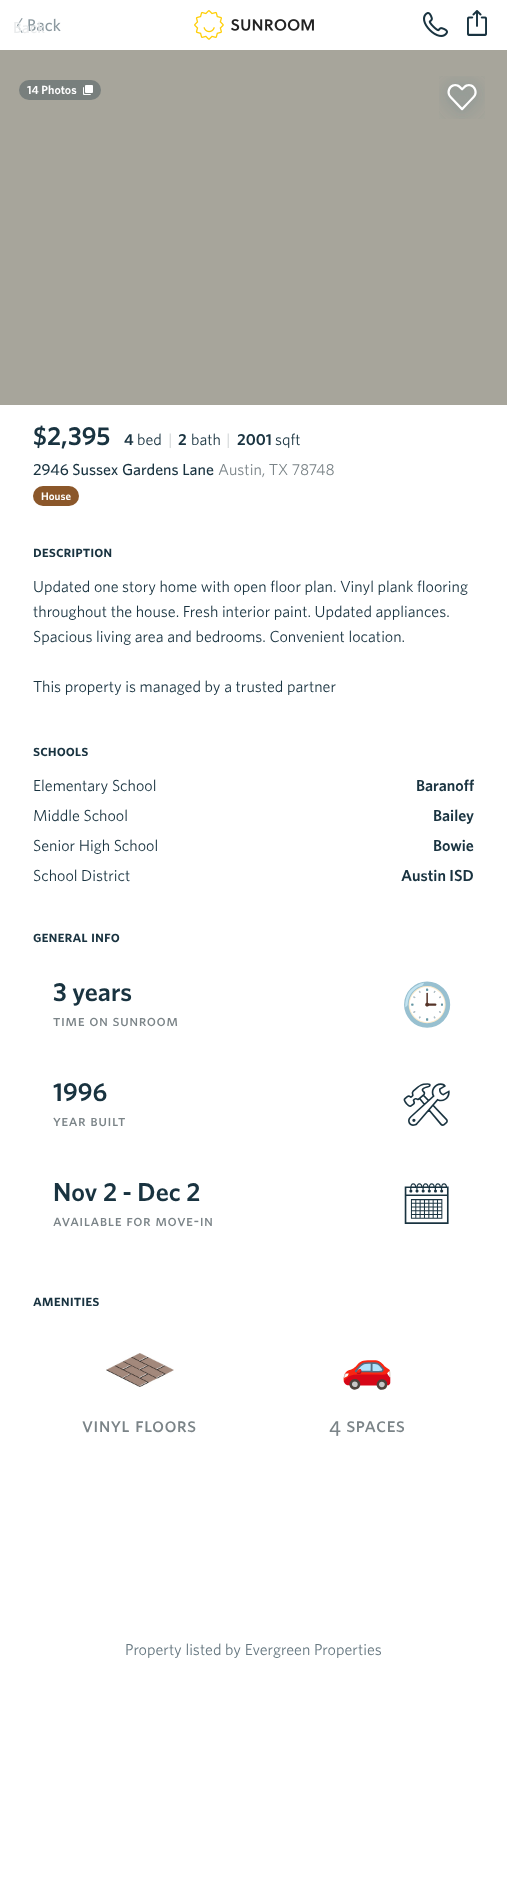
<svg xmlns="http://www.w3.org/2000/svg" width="507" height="1900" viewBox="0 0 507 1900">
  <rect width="100%" height="100%" fill="#fff"/>
  <image x="17" y="18" width="44" height="15" href="img/1.png"/>
  <image x="194" y="10" width="120" height="30" href="img/2.png"/>
  <image x="423" y="12" width="25" height="25" href="img/3.png"/>
  <image x="467" y="10" width="20" height="26" href="img/4.png"/>
  <path d="M0 50h507v355H0z" fill="#a7a59b"/>
  <rect x="19" y="80" width="82" height="20" rx="10" fill="#787f7d"/>
  <image x="83" y="85" width="10" height="10" href="img/5.png"/>
  <image x="439" y="76" width="46" height="43" href="img/6.png"/>
  <rect x="33" y="486" width="46" height="20" rx="10" fill="#8b572a"/>
  <image x="106" y="1353" width="68" height="34" href="img/7.png"/>
  <text x="13" y="33" font-family="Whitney" font-size="16" font-weight="500" fill="#e9ebec">Back</text>
  <text x="27" y="94" font-family="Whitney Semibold" font-size="12" font-weight="600" fill="#fff">14 Photos</text>
  <text x="33" y="445" font-family="Whitney Semibold" font-size="26" font-weight="600" fill="#193340">$2,395</text>
  <text x="124" y="445" font-family="Whitney Semibold" font-size="16" font-weight="600" fill="#193340">4</text>
  <text x="137" y="445" font-family="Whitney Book" font-size="16" fill="#193340">bed</text>
  <text x="168" y="445" font-family="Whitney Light" font-size="16" font-weight="300" fill="#bdc2c4">|</text>
  <text x="178" y="445" font-family="Whitney Semibold" font-size="16" font-weight="600" fill="#193340">2</text>
  <text x="191" y="445" font-family="Whitney Book" font-size="16" fill="#193340">bath</text>
  <text x="226" y="445" font-family="Whitney Light" font-size="16" font-weight="300" fill="#bdc2c4">|</text>
  <text x="237" y="445" font-family="Whitney Semibold" font-size="16" font-weight="600" fill="#193340">2001</text>
  <text x="275" y="445" font-family="Whitney Book" font-size="16" fill="#193340">sqft</text>
  <text x="33" y="475" font-family="Whitney" font-size="16" font-weight="500" fill="#193340">2946 Sussex Gardens Lane</text>
  <text x="218" y="475" font-family="Whitney Book" font-size="16" fill="#7b8488">Austin, TX 78748</text>
  <text x="41" y="500" font-family="Whitney Semibold" font-size="11" font-weight="600" fill="#fff">House</text>
  <text x="33" y="557" font-family="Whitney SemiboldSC" font-size="16" font-weight="600" fill="#193340">description</text>
  <g font-family="Whitney Book" font-size="16" fill="#193340">
    <text x="33" y="592">Updated one story home with open floor plan. Vinyl plank flooring</text>
    <text x="33" y="617">throughout the house. Fresh interior paint. Updated appliances.</text>
    <text x="33" y="642">Spacious living area and bedrooms. Convenient location.</text>
    <text x="33" y="692">This property is managed by a trusted partner</text>
  </g>
  <text x="33" y="756" font-family="Whitney SemiboldSC" font-size="16" font-weight="600" fill="#193340">schools</text>
  <text x="33" y="791" font-family="Whitney Book" font-size="16" fill="#193340">Elementary School</text>
  <text x="416" y="791" font-family="Whitney Semibold" font-size="16" font-weight="600" fill="#193340">Baranoff</text>
  <text x="33" y="821" font-family="Whitney Book" font-size="16" fill="#193340">Middle School</text>
  <text x="433" y="821" font-family="Whitney Semibold" font-size="16" font-weight="600" fill="#193340">Bailey</text>
  <text x="33" y="851" font-family="Whitney Book" font-size="16" fill="#193340">Senior High School</text>
  <text x="433" y="851" font-family="Whitney Semibold" font-size="16" font-weight="600" fill="#193340">Bowie</text>
  <text x="33" y="881" font-family="Whitney Book" font-size="16" fill="#193340">School District</text>
  <text x="401" y="881" font-family="Whitney Semibold" font-size="16" font-weight="600" fill="#193340">Austin ISD</text>
  <text x="33" y="942" font-family="Whitney SemiboldSC" font-size="16" font-weight="600" fill="#193340">general info</text>
  <text x="53" y="1001" font-family="Whitney Semibold" font-size="26" font-weight="600" fill="#193340">3 years</text>
  <text x="53" y="1026" font-family="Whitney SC" font-size="16" font-weight="500" letter-spacing="0.5" fill="#7b8488">time on sunroom</text>
  <text x="401" y="1019" font-family="Noto Color Emoji" font-size="42" fill="#193340">🕒</text>
  <text x="53" y="1101" font-family="Whitney Semibold" font-size="26" font-weight="600" fill="#193340">1996</text>
  <text x="53" y="1126" font-family="Whitney SC" font-size="16" font-weight="500" letter-spacing="0.5" fill="#7b8488">year built</text>
  <text x="400" y="1119" font-family="Noto Emoji" font-size="42" fill="#193340">🛠</text>
  <text x="53" y="1201" font-family="Whitney Semibold" font-size="26" font-weight="600" fill="#193340">Nov 2 - Dec 2</text>
  <text x="53" y="1226" font-family="Whitney SC" font-size="16" font-weight="500" letter-spacing="0.5" fill="#7b8488">available for move-in</text>
  <text x="400" y="1219" font-family="Noto Emoji" font-size="42" fill="#193340">🗓</text>
  <text x="33" y="1306" font-family="Whitney SemiboldSC" font-size="16" font-weight="600" fill="#193340">amenities</text>
  <text x="82" y="1432" font-family="Whitney SC" font-size="21" font-weight="500" letter-spacing="0.3" fill="#7b8488">vinyl floors</text>
  <text x="341" y="1381" font-family="Noto Color Emoji" font-size="42" fill="#193340">🚗</text>
  <text x="329" y="1432" font-family="Whitney SC" font-size="21" font-weight="500" letter-spacing="0.3" fill="#7b8488">4 spaces</text>
  <text x="125" y="1655" font-family="Whitney Book" font-size="16" fill="#677881">Property listed by Evergreen Properties</text>
</svg>
